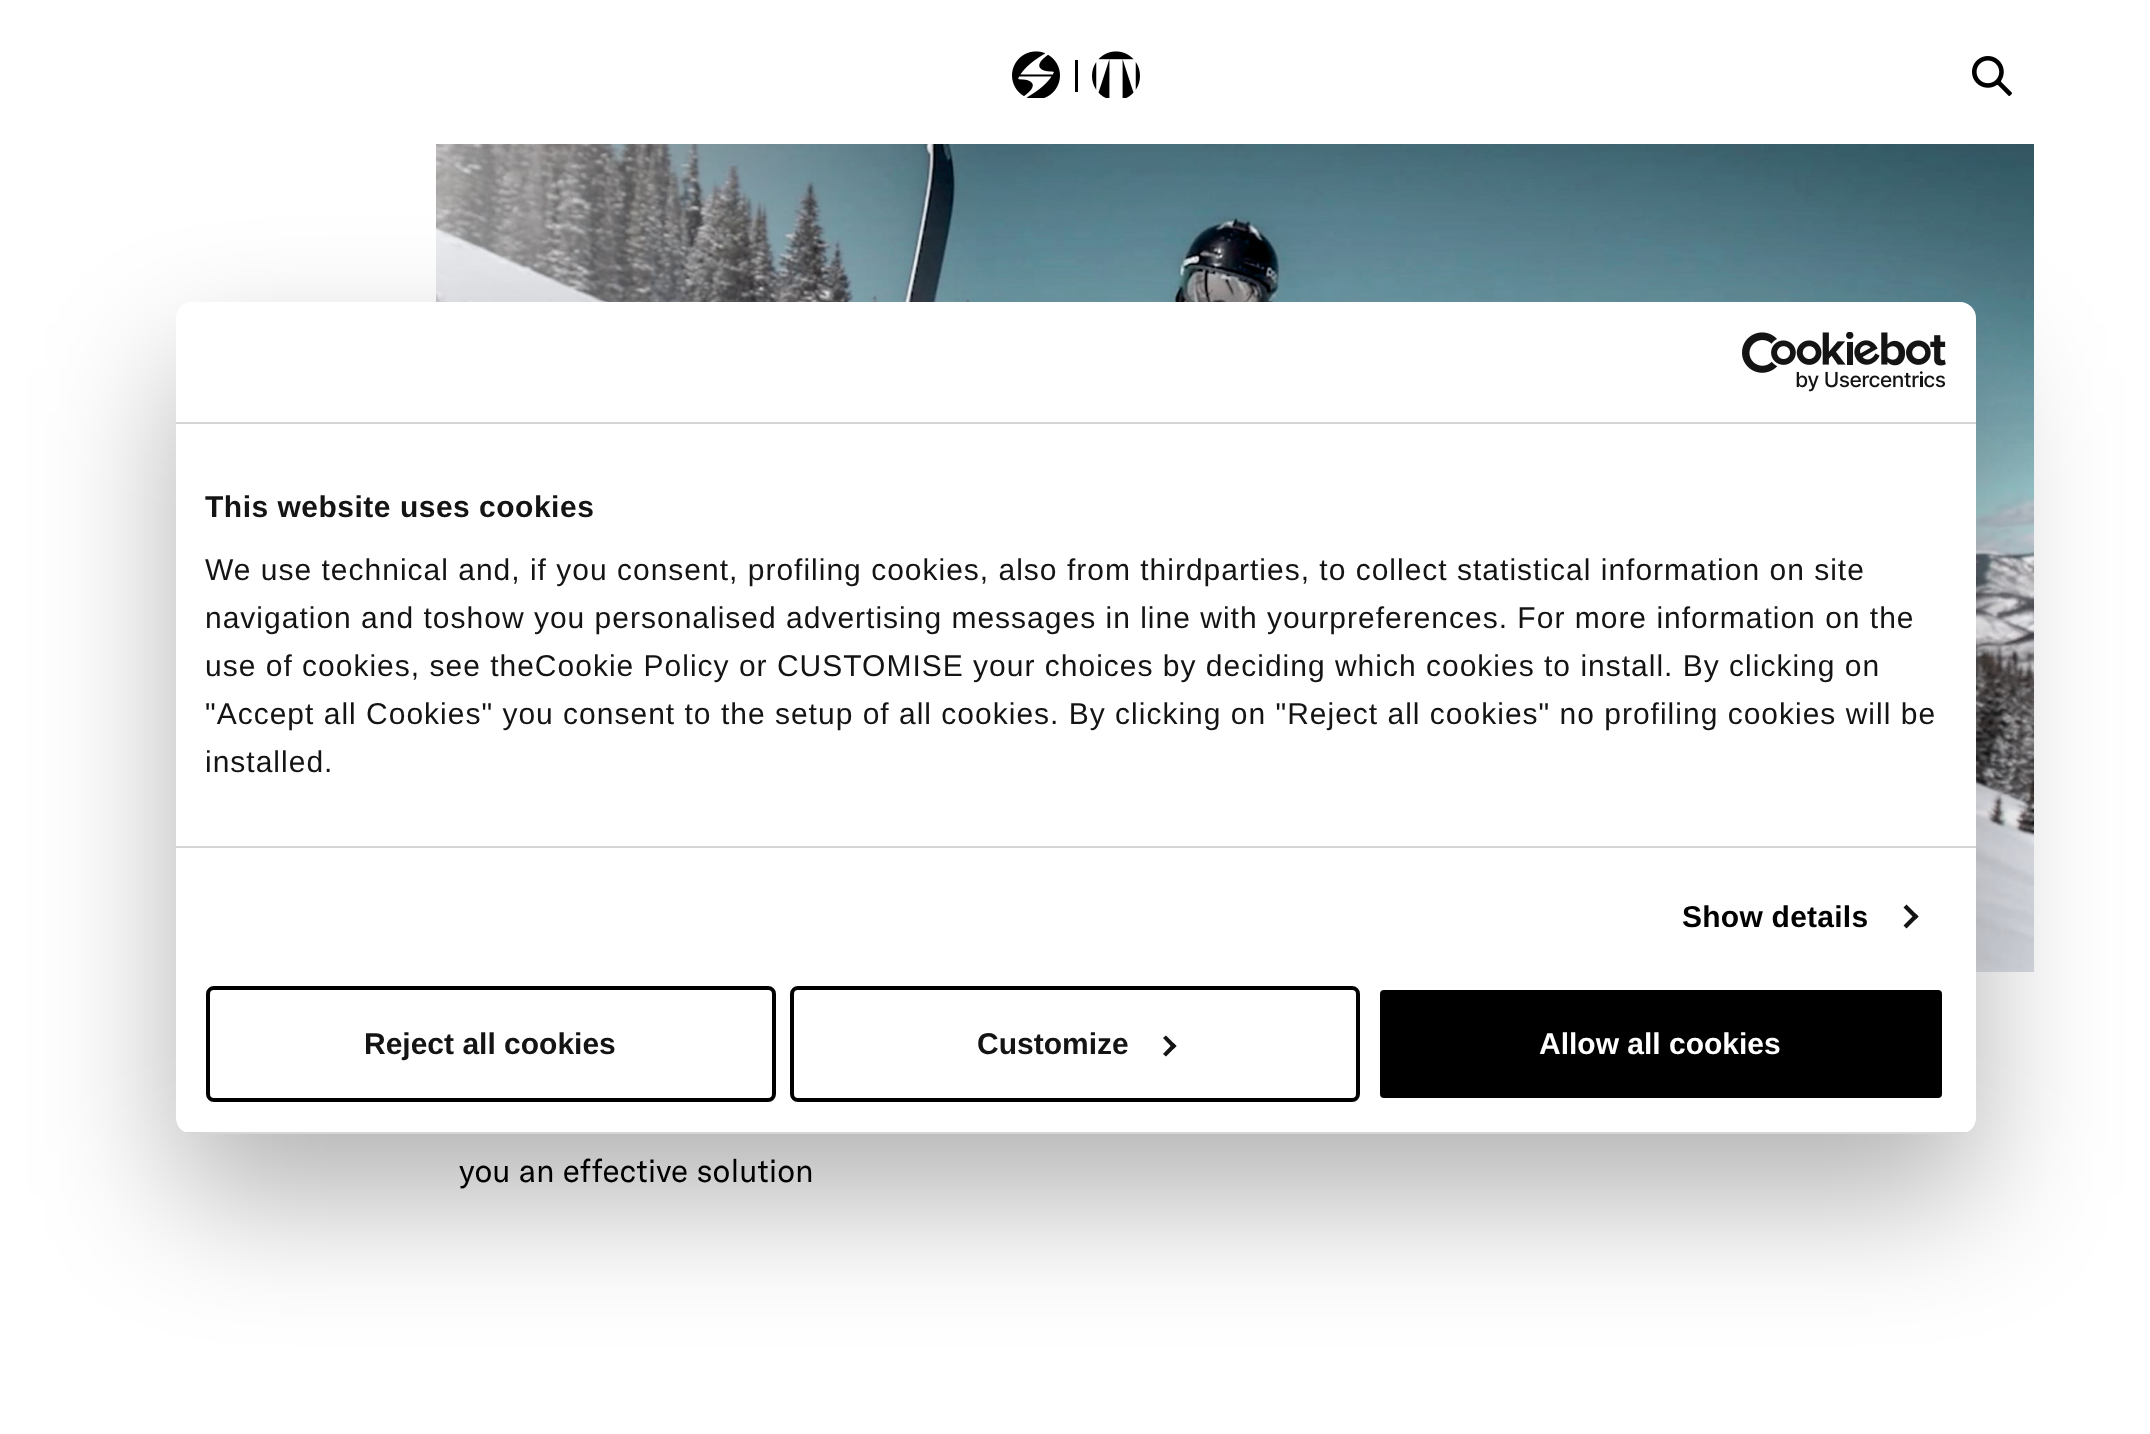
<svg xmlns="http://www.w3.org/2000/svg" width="2150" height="1434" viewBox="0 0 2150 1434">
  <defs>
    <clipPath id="clip1"><rect x="176" y="302" width="1800" height="832" rx="16"/></clipPath>
  </defs>
  <rect width="100%" height="100%" fill="#fff"/>
  <image x="1012" y="51" width="128" height="47" href="img/1.png"/>
  <image x="1972" y="56" width="40" height="40" href="img/2.png"/>
  <image x="436" y="144" width="1598" height="828" href="img/4.png"/>
  <rect x="176" y="366" width="1800" height="832" rx="16" fill="#0000004d" filter="blur(68px)"/>
  <rect x="176" y="302" width="1800" height="832" rx="16" fill="#fff"/>
  <path d="M176 422h1800v2H176z" fill="#d6d6d6"/>
  <image x="1742" y="332" width="204" height="60" href="img/3.png"/>
  <path d="M176 846h1800v2H176z" fill="#d6d6d6"/>
  <path d="M1906.5 904.5L1918.5 916.5L1915.5 919.5L1903.5 907.5Z" fill="#141414"/>
  <path d="M1915.5 913.5L1918.5 916.5L1906.5 928.5L1903.5 925.5Z" fill="#141414"/>
  <g clip-path="url(#clip1)">
    <path d="M176 1132h1800v2H176z" fill="#d6d6d6"/>
  </g>
  <rect x="208" y="988" width="566" height="112" rx="6" fill="none" stroke="#000" stroke-width="4"/>
  <rect x="792" y="988" width="566" height="112" rx="6" fill="none" stroke="#000" stroke-width="4"/>
  <path d="M1166 1035.5L1176.5 1046L1173.5 1049L1163 1038Z" fill="#141414"/>
  <path d="M1173.5 1043L1176.5 1046L1166 1056.5L1163 1054Z" fill="#141414"/>
  <rect x="1378" y="988" width="566" height="112" rx="6" fill="#000" stroke="#fff" stroke-width="4"/>
  <text x="205" y="517" font-family="Liberation Sans" font-size="30" font-weight="bold" letter-spacing="0.5" fill="#141414">This website uses cookies</text>
  <g font-family="Liberation Sans" font-size="30" letter-spacing="1" fill="#141414">
    <text x="205" y="580">We use technical and, if you consent, profiling cookies, also from thirdparties, to collect statistical information on site</text>
    <text x="205" y="628">navigation and toshow you personalised advertising messages in line with yourpreferences. For more information on the</text>
    <text x="205" y="676">use of cookies, see theCookie Policy or CUSTOMISE your choices by deciding which cookies to install. By clicking on</text>
    <text x="205" y="724">"Accept all Cookies" you consent to the setup of all cookies. By clicking on "Reject all cookies" no profiling cookies will be</text>
    <text x="205" y="772">installed.</text>
  </g>
  <text x="1682" y="927" font-family="Liberation Sans" font-size="30" font-weight="bold" letter-spacing="0.25" fill="#000">Show details</text>
  <g font-family="Liberation Sans" font-size="30" font-weight="bold" fill="#141414">
    <text x="364" y="1054">Reject all cookies</text>
    <text x="977" y="1054">Customize</text>
  </g>
  <text x="1539" y="1054" font-family="Liberation Sans" font-size="30" font-weight="bold" fill="#fff">Allow all cookies</text>
  <text x="459" y="1182" font-family="GT America" font-size="32" fill="#000">you an effective solution</text>
</svg>
